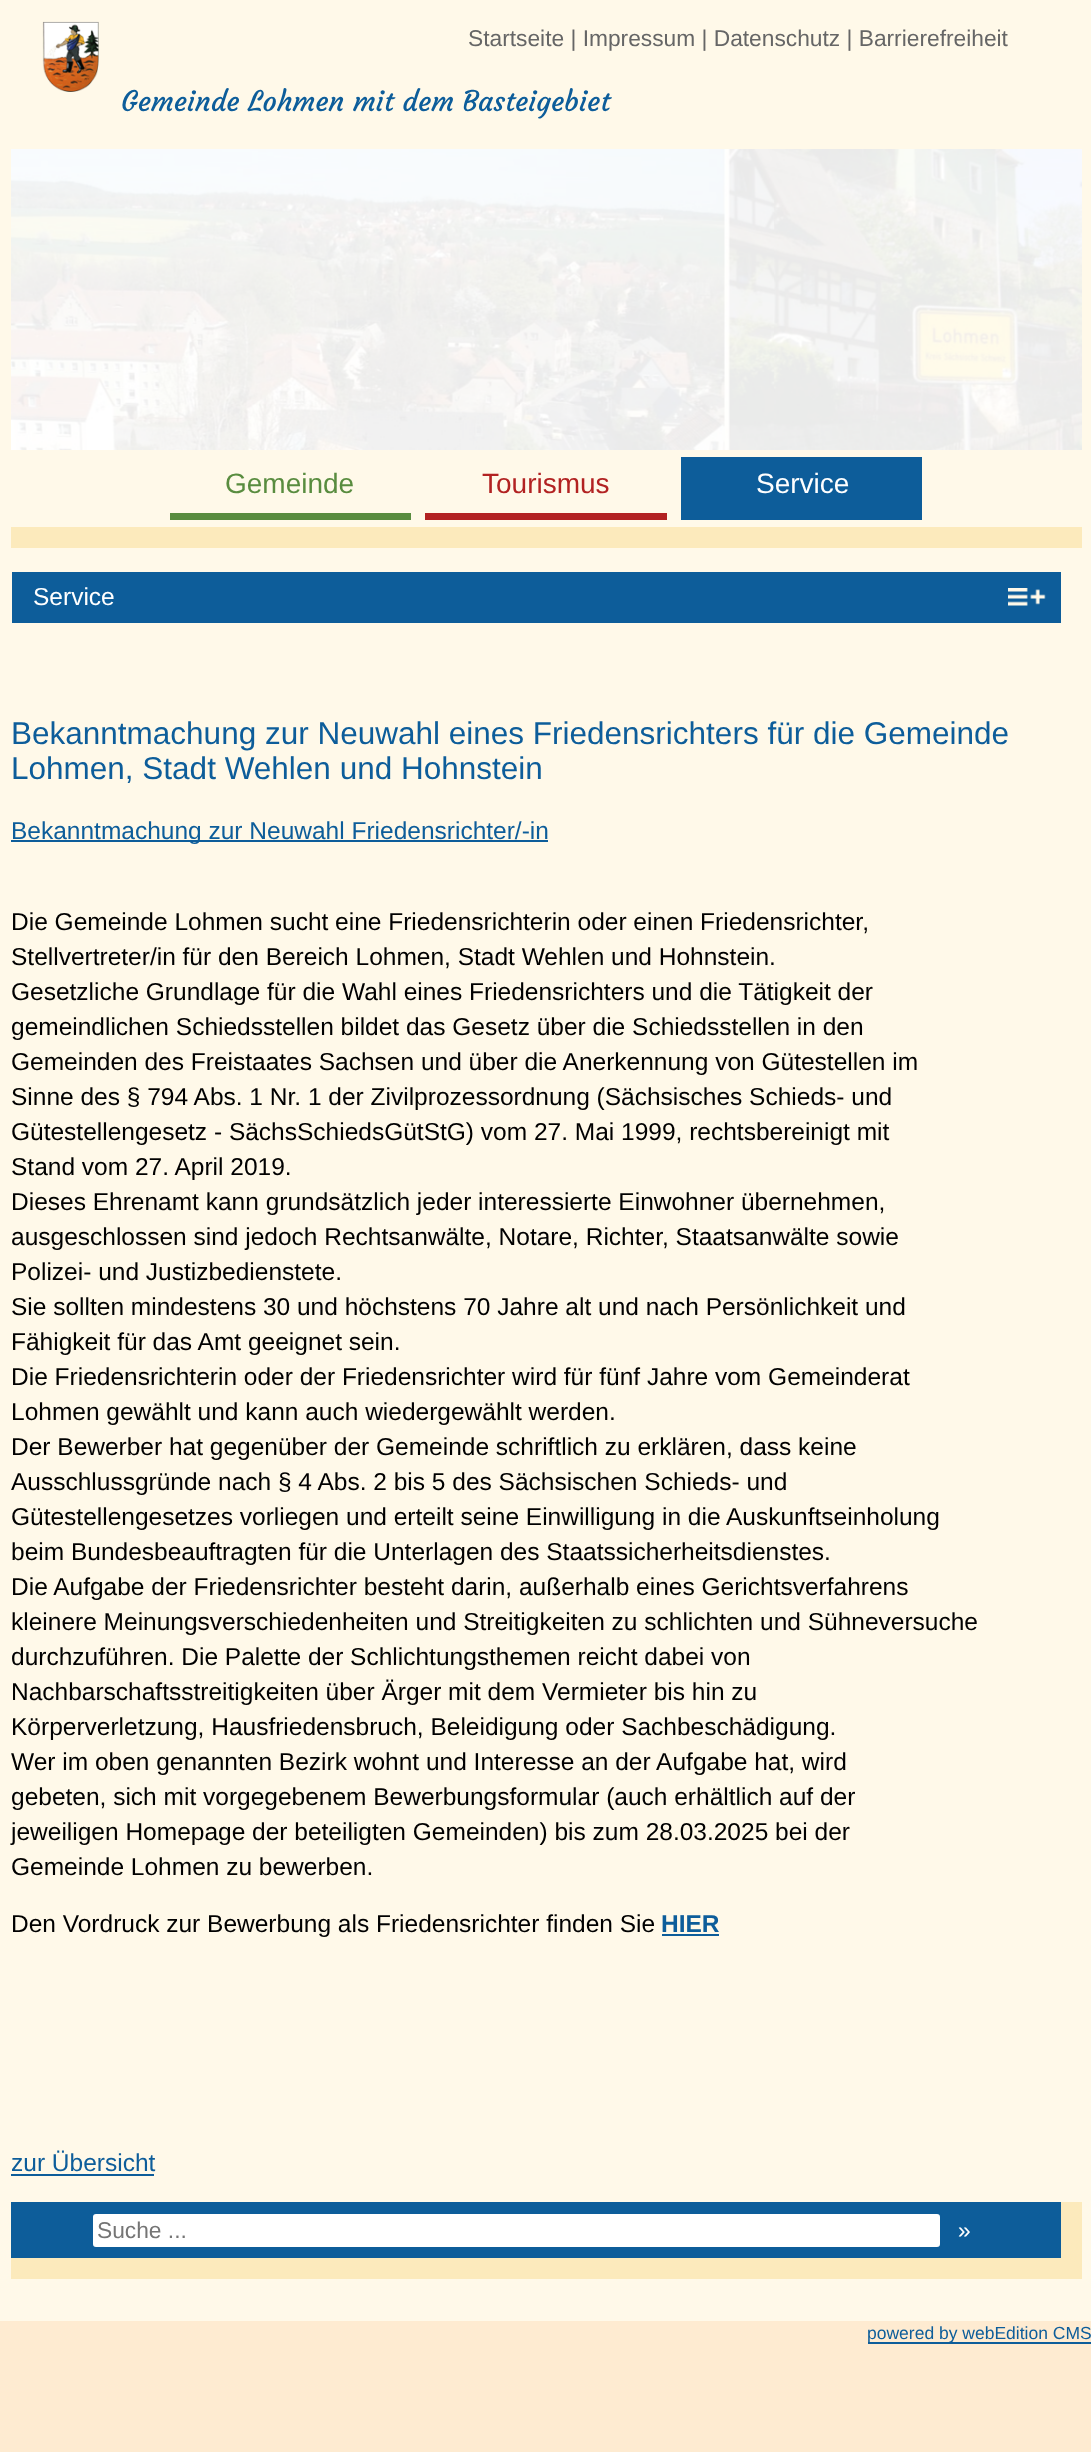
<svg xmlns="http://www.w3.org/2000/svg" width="1091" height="2452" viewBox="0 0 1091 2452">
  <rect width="100%" height="100%" fill="#feebd1"/>
  <path d="M0 0h1091v2321H0z" fill="#fff9e9"/>
  <image x="42" y="21" width="57" height="71" href="img/1.png"/>
  <path d="M11 149h1071v301H11z" fill="#fff"/>
  <image x="11" y="149" width="1071" height="301" href="img/2.png"/>
  <path d="M11 527h1071v21H11z" fill="#fceabc"/>
  <path d="M170 513h241v7H170z" fill="#598c3f"/>
  <path d="M425 513h242v7H425z" fill="#b22222"/>
  <path d="M681 457h241v63H681z" fill="#0d5d9a"/>
  <path d="M12 572h1049v51H12z" fill="#0d5d9a"/>
  <image x="1008" y="588" width="38" height="18" href="img/3.png"/>
  <path d="M11 840h537v2H11z" fill="#0d5d9a"/>
  <path d="M662 1934h57v2H662z" fill="#0d5d9a"/>
  <path d="M11 2174h143v2H11z" fill="#0d5d9a"/>
  <path d="M11 2202h1071v77H11z" fill="#fceabc"/>
  <path d="M11 2202h1050v56H11z" fill="#0d5d9a"/>
  <rect x="92" y="2213" width="849" height="35" rx="4" fill="#fff" stroke="#0d5d9a" stroke-width="2"/>
  <path d="M868 2342h223v2H868z" fill="#0d5d9a"/>
  <text x="468" y="46" font-family="Liberation Sans" font-size="22.75" fill="#666">Startseite | Impressum | Datenschutz | Barrierefreiheit</text>
  <text x="121" y="111" font-family="Courgette" font-size="28" fill="#0d5d9a">Gemeinde Lohmen mit dem Basteigebiet</text>
  <text x="225" y="493" font-family="Liberation Sans" font-size="28" fill="#598c3f">Gemeinde</text>
  <text x="482" y="493" font-family="Liberation Sans" font-size="28" fill="#b22222">Tourismus</text>
  <text x="756" y="493" font-family="Liberation Sans" font-size="28" fill="#fff">Service</text>
  <text x="33" y="605" font-family="Liberation Sans" font-size="24.5" fill="#fff">Service</text>
  <g font-family="Liberation Sans" font-size="31.5" fill="#0d5d9a">
    <text x="11" y="744">Bekanntmachung zur Neuwahl eines Friedensrichters für die Gemeinde</text>
    <text x="11" y="779">Lohmen, Stadt Wehlen und Hohnstein</text>
  </g>
  <text x="11" y="839" font-family="Liberation Sans" font-size="24.5" fill="#0d5d9a">Bekanntmachung zur Neuwahl Friedensrichter/-in</text>
  <g font-family="Liberation Sans" font-size="24.5" fill="#000">
    <text x="11" y="930">Die Gemeinde Lohmen sucht eine Friedensrichterin oder einen Friedensrichter,</text>
    <text x="11" y="965">Stellvertreter/in für den Bereich Lohmen, Stadt Wehlen und Hohnstein.</text>
    <text x="11" y="1000">Gesetzliche Grundlage für die Wahl eines Friedensrichters und die Tätigkeit der</text>
    <text x="11" y="1035">gemeindlichen Schiedsstellen bildet das Gesetz über die Schiedsstellen in den</text>
    <text x="11" y="1070">Gemeinden des Freistaates Sachsen und über die Anerkennung von Gütestellen im</text>
    <text x="11" y="1105">Sinne des § 794 Abs. 1 Nr. 1 der Zivilprozessordnung (Sächsisches Schieds- und</text>
    <text x="11" y="1140">Gütestellengesetz - SächsSchiedsGütStG) vom 27. Mai 1999, rechtsbereinigt mit</text>
    <text x="11" y="1175">Stand vom 27. April 2019.</text>
    <text x="11" y="1210">Dieses Ehrenamt kann grundsätzlich jeder interessierte Einwohner übernehmen,</text>
    <text x="11" y="1245">ausgeschlossen sind jedoch Rechtsanwälte, Notare, Richter, Staatsanwälte sowie</text>
    <text x="11" y="1280">Polizei- und Justizbedienstete.</text>
    <text x="11" y="1315">Sie sollten mindestens 30 und höchstens 70 Jahre alt und nach Persönlichkeit und</text>
    <text x="11" y="1350">Fähigkeit für das Amt geeignet sein.</text>
    <text x="11" y="1385">Die Friedensrichterin oder der Friedensrichter wird für fünf Jahre vom Gemeinderat</text>
    <text x="11" y="1420">Lohmen gewählt und kann auch wiedergewählt werden.</text>
    <text x="11" y="1455">Der Bewerber hat gegenüber der Gemeinde schriftlich zu erklären, dass keine</text>
    <text x="11" y="1490">Ausschlussgründe nach § 4 Abs. 2 bis 5 des Sächsischen Schieds- und</text>
    <text x="11" y="1525">Gütestellengesetzes vorliegen und erteilt seine Einwilligung in die Auskunftseinholung</text>
    <text x="11" y="1560">beim Bundesbeauftragten für die Unterlagen des Staatssicherheitsdienstes.</text>
    <text x="11" y="1595">Die Aufgabe der Friedensrichter besteht darin, außerhalb eines Gerichtsverfahrens</text>
    <text x="11" y="1630">kleinere Meinungsverschiedenheiten und Streitigkeiten zu schlichten und Sühneversuche</text>
    <text x="11" y="1665">durchzuführen. Die Palette der Schlichtungsthemen reicht dabei von</text>
    <text x="11" y="1700">Nachbarschaftsstreitigkeiten über Ärger mit dem Vermieter bis hin zu</text>
    <text x="11" y="1735">Körperverletzung, Hausfriedensbruch, Beleidigung oder Sachbeschädigung.</text>
    <text x="11" y="1770">Wer im oben genannten Bezirk wohnt und Interesse an der Aufgabe hat, wird</text>
    <text x="11" y="1805">gebeten, sich mit vorgegebenem Bewerbungsformular (auch erhältlich auf der</text>
    <text x="11" y="1840">jeweiligen Homepage der beteiligten Gemeinden) bis zum 28.03.2025 bei der</text>
    <text x="11" y="1875">Gemeinde Lohmen zu bewerben.</text>
    <text x="11" y="1932">Den Vordruck zur Bewerbung als Friedensrichter finden Sie</text>
  </g>
  <text x="661" y="1932" font-family="Liberation Sans" font-size="24.5" font-weight="bold" fill="#0d5d9a">HIER</text>
  <text x="11" y="2171" font-family="Liberation Sans" font-size="24.5" fill="#0d5d9a">zur Übersicht</text>
  <text x="97" y="2238" font-family="Liberation Sans" font-size="22.75" fill="#757575">Suche ...</text>
  <text x="958" y="2238" font-family="Liberation Sans" font-size="22.75" fill="#fff">»</text>
  <text x="867" y="2339" font-family="Liberation Sans" font-size="17.5" fill="#0d5d9a">powered by webEdition CMS</text>
</svg>
